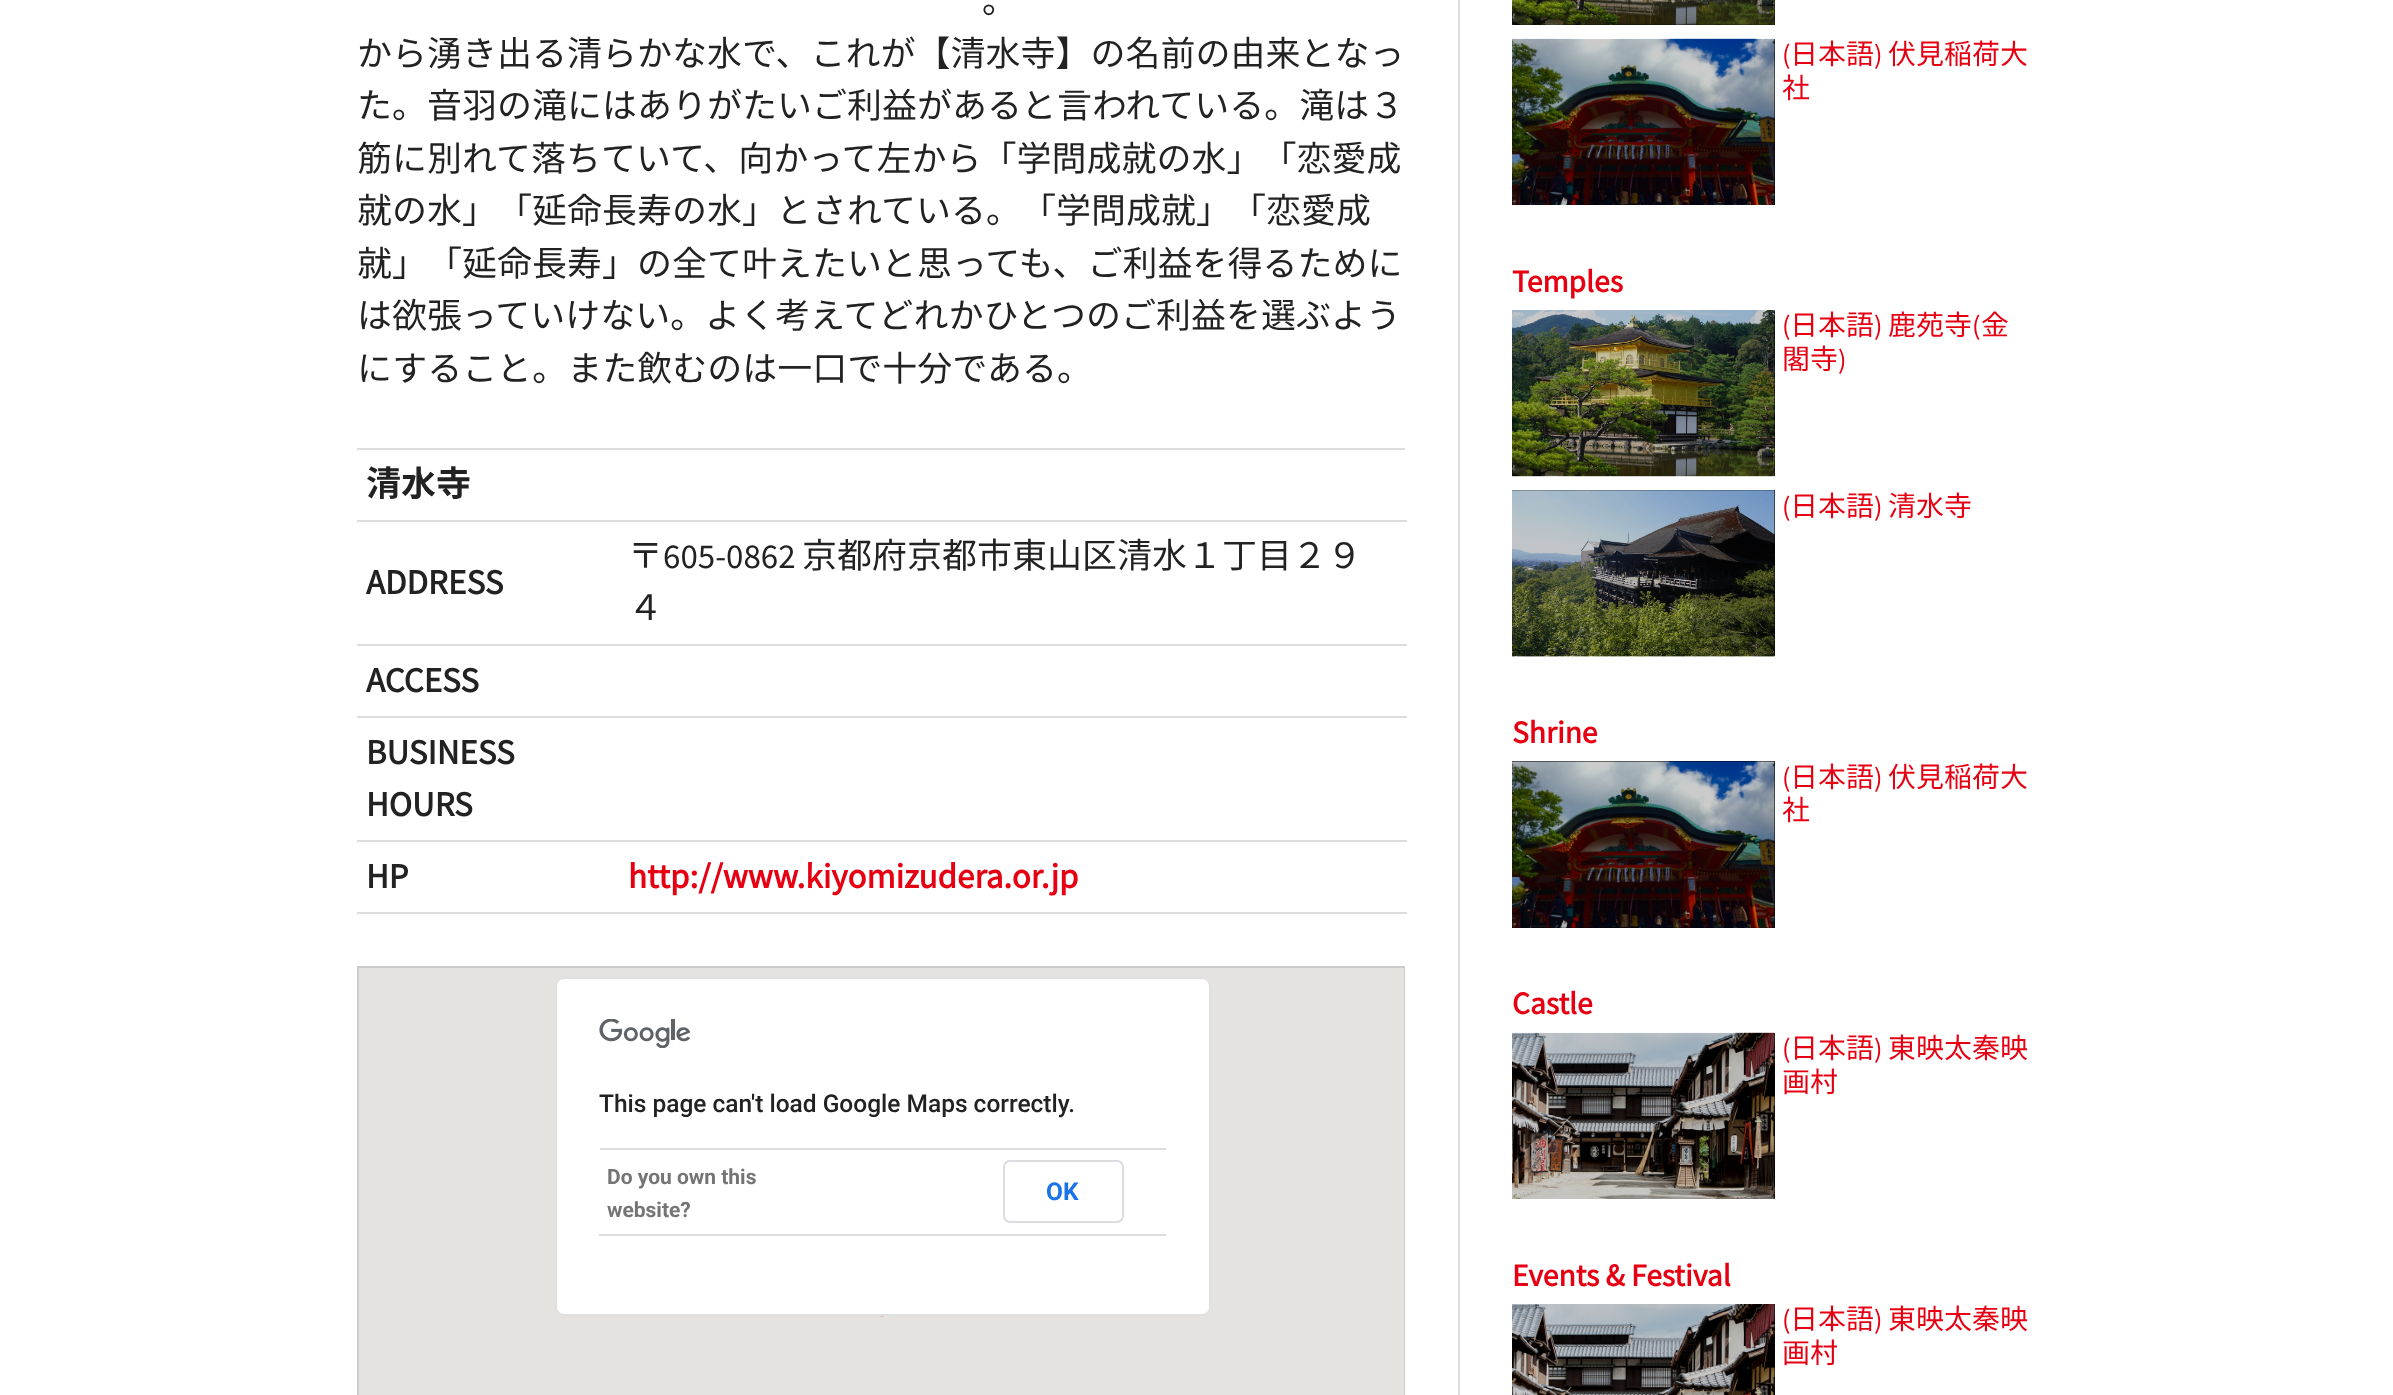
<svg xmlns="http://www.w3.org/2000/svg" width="2393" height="1395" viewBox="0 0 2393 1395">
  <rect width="100%" height="100%" fill="#fff"/>
  <path d="M1458 0h2v1395H1458z" fill="#ddd"/>
  <path d="M357 448h1048v2H357z" fill="#ddd"/>
  <path d="M357 520h1050v2H357z" fill="#ddd"/>
  <path d="M357 644h1050v2H357z" fill="#ddd"/>
  <path d="M357 716h1050v2H357z" fill="#ddd"/>
  <path d="M357 840h1050v2H357z" fill="#ddd"/>
  <path d="M357 912h1050v2H357z" fill="#ddd"/>
  <path d="M358 967h1046v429H358z" fill="none" stroke="#ccc" stroke-width="2"/>
  <path d="M359 968h1045v427H359z" fill="#e5e3df"/>
  <image x="880" y="1316" width="5" height="1" href="img/1.png"/>
  <rect x="555" y="977" width="656" height="339" rx="9" fill="#fff"/>
  <rect x="556" y="978" width="654" height="337" rx="8" fill="none" stroke="#0000001f" stroke-width="2"/>
  <image x="599" y="1019" width="91" height="29" href="img/2.png"/>
  <path d="M600 1148h566v2H600z" fill="#ddd"/>
  <path d="M599 1234h567v2H599z" fill="#ddd"/>
  <rect x="1004" y="1161" width="119" height="61" rx="6" fill="none" stroke="#dadce0" stroke-width="2"/>
  <path d="M1512 0h263v25H1512z" fill="#000"/>
  <image x="1512" y="0" width="263" height="25" href="img/3.png"/>
  <path d="M1512 39h263v166H1512z" fill="#000"/>
  <image x="1512" y="38" width="263" height="167" href="img/4.png"/>
  <path d="M1512 310h263v166H1512z" fill="#000"/>
  <image x="1512" y="310" width="263" height="167" href="img/5.png"/>
  <path d="M1512 490h263v166H1512z" fill="#000"/>
  <image x="1512" y="490" width="263" height="167" href="img/6.png"/>
  <path d="M1512 761h263v167H1512z" fill="#000"/>
  <image x="1512" y="761" width="263" height="167" href="img/7.png"/>
  <path d="M1512 1033h263v166H1512z" fill="#000"/>
  <image x="1512" y="1032" width="263" height="167" href="img/8.png"/>
  <path d="M1512 1304h263v91H1512z" fill="#000"/>
  <image x="1512" y="1304" width="263" height="91" href="img/9.png"/>
  <g font-family="Noto Sans JP" font-size="35" fill="#222">
    <text x="982" y="13">。</text>
    <text x="357" y="66">から湧き出る清らかな水で、これが【清水寺】の名前の由来となっ</text>
    <text x="357" y="118">た。音羽の滝にはありがたいご利益があると言われている。滝は３</text>
    <text x="357" y="171">筋に別れて落ちていて、向かって左から「学問成就の水」「恋愛成</text>
    <text x="357" y="223">就の水」「延命長寿の水」とされている。「学問成就」「恋愛成</text>
    <text x="357" y="276">就」「延命長寿」の全て叶えたいと思っても、ご利益を得るために</text>
    <text x="357" y="328">は欲張っていけない。よく考えてどれかひとつのご利益を選ぶよう</text>
    <text x="357" y="381">にすること。また飲むのは一口で十分である。</text>
  </g>
  <text x="366" y="496" font-family="Noto Sans JP" font-size="35" font-weight="bold" fill="#222">清水寺</text>
  <text x="366" y="594" font-family="Source Sans Pro" font-size="35" font-weight="bold" fill="#222">ADDRESS</text>
  <text x="628" y="568" font-family="Noto Sans JP" font-size="35" fill="#222">〒</text>
  <text x="663" y="568" font-family="Source Sans Pro" font-size="35" fill="#222">605-0862</text>
  <g font-family="Noto Sans JP" font-size="35" fill="#222">
    <text x="802" y="568">京都府京都市東山区清水１丁目２９</text>
    <text x="628" y="620">４</text>
  </g>
  <g font-family="Source Sans Pro" font-size="35" font-weight="bold" fill="#222">
    <text x="366" y="692">ACCESS</text>
    <text x="366" y="764">BUSINESS</text>
    <text x="366" y="816">HOURS</text>
    <text x="366" y="888">HP</text>
  </g>
  <text x="628" y="888" font-family="Source Sans Pro" font-size="35" font-weight="bold" fill="#e60012">http://www.kiyomizudera.or.jp</text>
  <text x="599" y="1112" font-family="Roboto" font-size="24.5" font-weight="500" fill="#222">This page can't load Google Maps correctly.</text>
  <g font-family="Roboto" font-size="21" font-weight="bold" fill="#757575">
    <text x="607" y="1184">Do you own this</text>
    <text x="607" y="1217">website?</text>
  </g>
  <text x="1046" y="1200" font-family="Roboto" font-size="24.5" font-weight="bold" fill="#1a73e8">OK</text>
  <text x="1782" y="64" font-family="Source Sans Pro" font-size="28" fill="#e60012">(</text>
  <text x="1790" y="64" font-family="Noto Sans JP" font-size="28" fill="#e60012">日本語</text>
  <text x="1874" y="64" font-family="Source Sans Pro" font-size="28" fill="#e60012">)</text>
  <g font-family="Noto Sans JP" font-size="28" fill="#e60012">
    <text x="1888" y="64">伏見稲荷大</text>
    <text x="1782" y="98">社</text>
  </g>
  <text x="1512" y="292" font-family="Source Sans Pro" font-size="31.5" font-weight="bold" fill="#e60012">Temples</text>
  <text x="1782" y="335" font-family="Source Sans Pro" font-size="28" fill="#e60012">(</text>
  <text x="1790" y="335" font-family="Noto Sans JP" font-size="28" fill="#e60012">日本語</text>
  <text x="1874" y="335" font-family="Source Sans Pro" font-size="28" fill="#e60012">)</text>
  <text x="1888" y="335" font-family="Noto Sans JP" font-size="28" fill="#e60012">鹿苑寺</text>
  <text x="1972" y="335" font-family="Source Sans Pro" font-size="28" fill="#e60012">(</text>
  <g font-family="Noto Sans JP" font-size="28" fill="#e60012">
    <text x="1981" y="335">金</text>
    <text x="1782" y="369">閣寺</text>
  </g>
  <g font-family="Source Sans Pro" font-size="28" fill="#e60012">
    <text x="1838" y="369">)</text>
    <text x="1782" y="516">(</text>
  </g>
  <text x="1790" y="516" font-family="Noto Sans JP" font-size="28" fill="#e60012">日本語</text>
  <text x="1874" y="516" font-family="Source Sans Pro" font-size="28" fill="#e60012">)</text>
  <text x="1888" y="516" font-family="Noto Sans JP" font-size="28" fill="#e60012">清水寺</text>
  <text x="1512" y="743" font-family="Source Sans Pro" font-size="31.5" font-weight="bold" fill="#e60012">Shrine</text>
  <text x="1782" y="787" font-family="Source Sans Pro" font-size="28" fill="#e60012">(</text>
  <text x="1790" y="787" font-family="Noto Sans JP" font-size="28" fill="#e60012">日本語</text>
  <text x="1874" y="787" font-family="Source Sans Pro" font-size="28" fill="#e60012">)</text>
  <g font-family="Noto Sans JP" font-size="28" fill="#e60012">
    <text x="1888" y="787">伏見稲荷大</text>
    <text x="1782" y="820">社</text>
  </g>
  <text x="1512" y="1014" font-family="Source Sans Pro" font-size="31.5" font-weight="bold" fill="#e60012">Castle</text>
  <text x="1782" y="1058" font-family="Source Sans Pro" font-size="28" fill="#e60012">(</text>
  <text x="1790" y="1058" font-family="Noto Sans JP" font-size="28" fill="#e60012">日本語</text>
  <text x="1874" y="1058" font-family="Source Sans Pro" font-size="28" fill="#e60012">)</text>
  <g font-family="Noto Sans JP" font-size="28" fill="#e60012">
    <text x="1888" y="1058">東映太秦映</text>
    <text x="1782" y="1092">画村</text>
  </g>
  <text x="1512" y="1286" font-family="Source Sans Pro" font-size="31.5" font-weight="bold" fill="#e60012">Events &amp; Festival</text>
  <text x="1782" y="1329" font-family="Source Sans Pro" font-size="28" fill="#e60012">(</text>
  <text x="1790" y="1329" font-family="Noto Sans JP" font-size="28" fill="#e60012">日本語</text>
  <text x="1874" y="1329" font-family="Source Sans Pro" font-size="28" fill="#e60012">)</text>
  <g font-family="Noto Sans JP" font-size="28" fill="#e60012">
    <text x="1888" y="1329">東映太秦映</text>
    <text x="1782" y="1363">画村</text>
  </g>
</svg>
